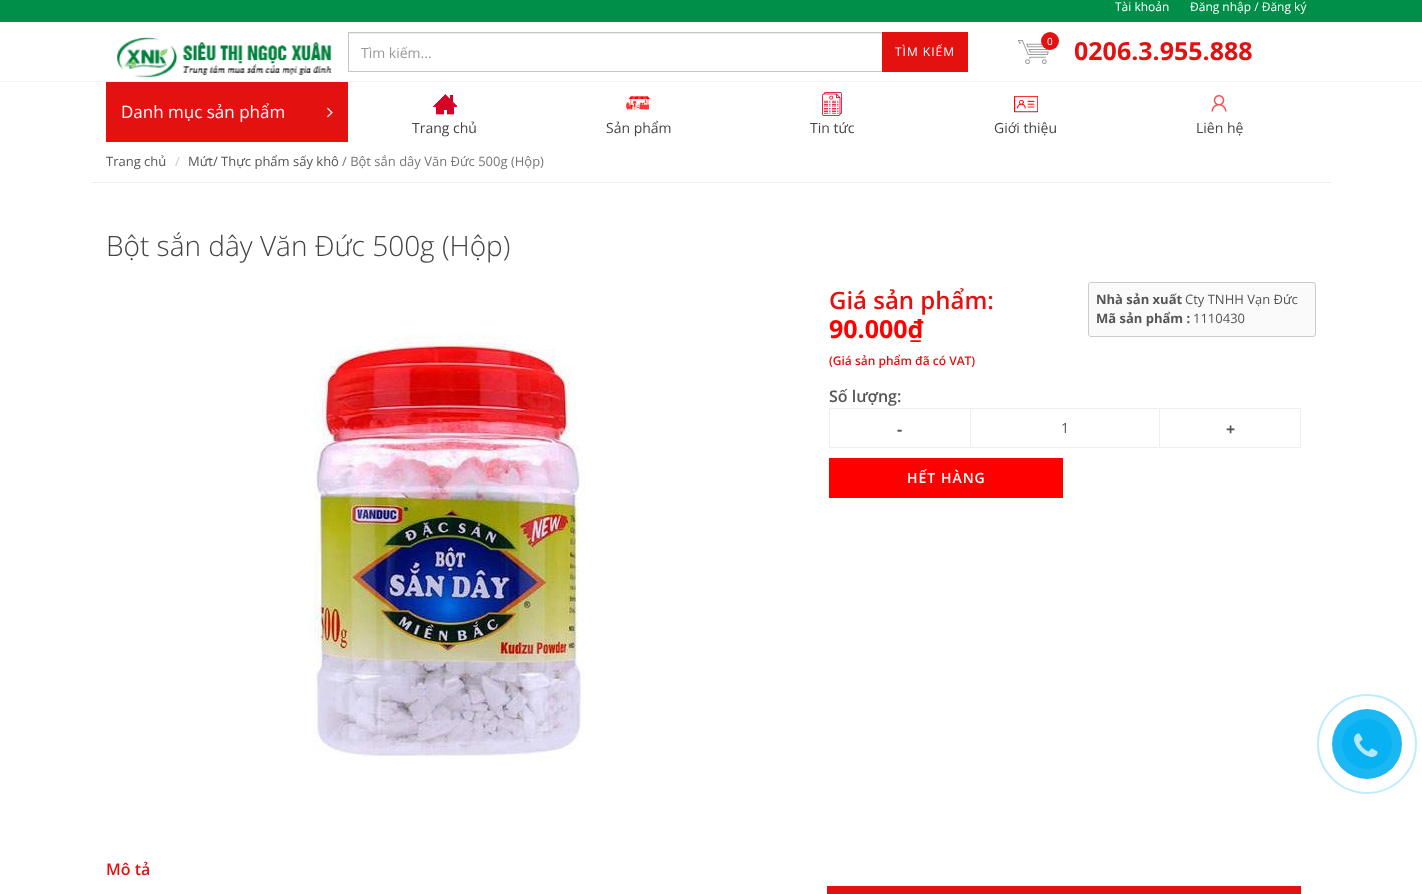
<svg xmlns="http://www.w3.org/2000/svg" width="1422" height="894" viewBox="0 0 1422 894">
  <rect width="100%" height="100%" fill="#fff"/>
  <path d="M0 0h1422v22H0z" fill="#008f49"/>
  <path d="M0 81h1422v1H0z" fill="#f5f5f5"/>
  <image x="117" y="37" width="215" height="41" href="img/1.png"/>
  <path d="M349 33h537v1H349z" fill="#ececec"/>
  <path d="M348 32h538v1H348z" fill="#c6c6c6"/>
  <path d="M348 71h538v1H348z" fill="#c6c6c6"/>
  <path d="M348 32h1v40H348z" fill="#c6c6c6"/>
  <path d="M882 32h86v40H882z" fill="#e41111"/>
  <image x="1018" y="40" width="31" height="24" href="img/2.png"/>
  <circle cx="1050" cy="41" r="9" fill="#e41111"/>
  <path d="M106 82h242v60H106z" fill="#e41111"/>
  <image x="327" y="107" width="6" height="11" href="img/3.png"/>
  <image x="433" y="94" width="24" height="21" href="img/4.png"/>
  <image x="626" y="96" width="24" height="15" href="img/5.png"/>
  <image x="822" y="92" width="20" height="24" href="img/6.png"/>
  <image x="1014" y="96" width="24" height="17" href="img/7.png"/>
  <image x="1211" y="95" width="16" height="17" href="img/8.png"/>
  <path d="M91 182h1240v1H91z" fill="#eee"/>
  <image x="308" y="333" width="278" height="428" href="img/9.png"/>
  <rect x="1088.5" y="282.5" width="227" height="54" rx="2.5" fill="#fafafa" stroke="#ccc"/>
  <path d="M829.5 408.5h141v39H829.5z" fill="none" stroke="#eee"/>
  <path d="M971 408h188v1H971z" fill="#eee"/>
  <path d="M971 447h188v1H971z" fill="#eee"/>
  <path d="M1159.5 408.5h141v39H1159.5z" fill="none" stroke="#eee"/>
  <path d="M829 458h234v40H829z" fill="#f00"/>
  <path d="M827 886h474v8H827z" fill="#e41111"/>
  <circle cx="1367" cy="744" r="49" fill="none" stroke="#bfebfc" stroke-width="2"/>
  <circle cx="1367" cy="744" r="35" fill="#1ab7f3"/>
  <circle cx="1367" cy="744" r="25" fill="#08b1f2"/>
  <image x="1354" y="733" width="24" height="24" href="img/10.png"/>
  <g font-family="Open Sans" font-size="12" fill="#fff">
    <text x="1115" y="11">Tài khoản</text>
    <text x="1190" y="11">Đăng nhập / Đăng ký</text>
  </g>
  <text x="361" y="58" font-family="Open Sans" font-size="14" fill="#999">Tìm kiếm...</text>
  <text x="895" y="56" font-family="Open Sans" font-size="12" letter-spacing="1" fill="#fff">TÌM KIẾM</text>
  <text x="1047" y="45" font-family="Open Sans" font-size="10" fill="#fff">0</text>
  <text x="1074" y="60" font-family="Open Sans" font-size="25" font-weight="bold" fill="#e41111">0206.3.955.888</text>
  <text x="121" y="118" font-family="Open Sans" font-size="17" fill="#fff">Danh mục sản phẩm</text>
  <g font-family="Open Sans" font-size="14" fill="#444">
    <text x="412" y="133">Trang chủ</text>
    <text x="606" y="133">Sản phẩm</text>
    <text x="810" y="133">Tin tức</text>
    <text x="994" y="133">Giới thiệu</text>
    <text x="1196" y="133">Liên hệ</text>
  </g>
  <text x="106" y="166" font-family="Open Sans" font-size="13" fill="#555">Trang chủ</text>
  <text x="175" y="166" font-family="Open Sans" font-size="13" fill="#ccc">/</text>
  <text x="188" y="166" font-family="Open Sans" font-size="13" fill="#555">Mứt/ Thực phẩm sấy khô</text>
  <text x="342" y="166" font-family="Open Sans" font-size="13" fill="#777">/ Bột sắn dây Văn Đức 500g (Hộp)</text>
  <text x="106" y="256" font-family="Open Sans" font-size="28" font-weight="300" fill="#444">Bột sắn dây Văn Đức 500g (Hộp)</text>
  <text x="829" y="309" font-family="Open Sans" font-size="24" font-weight="600" fill="#e41111">Giá sản phẩm:</text>
  <text x="829" y="338" font-family="Open Sans" font-size="25" font-weight="bold" fill="#f00">90.000₫</text>
  <text x="829" y="365" font-family="Open Sans" font-size="12" font-weight="600" fill="#e41111">(Giá sản phẩm đã có VAT)</text>
  <text x="1096" y="304" font-family="Open Sans" font-size="13" font-weight="bold" fill="#555">Nhà sản xuất</text>
  <text x="1185" y="304" font-family="Open Sans" font-size="13" fill="#555">Cty TNHH Vạn Đức</text>
  <text x="1096" y="323" font-family="Open Sans" font-size="13" font-weight="bold" fill="#555">Mã sản phẩm :</text>
  <text x="1193" y="323" font-family="Open Sans" font-size="13" fill="#555">1110430</text>
  <text x="829" y="402" font-family="Open Sans" font-size="16" font-weight="600" fill="#555">Số lượng:</text>
  <text x="897" y="435" font-family="Open Sans" font-size="16" font-weight="bold" fill="#555">-</text>
  <text x="1061" y="433" font-family="Open Sans" font-size="14" fill="#555">1</text>
  <text x="1226" y="435" font-family="Open Sans" font-size="16" font-weight="bold" fill="#555">+</text>
  <text x="907" y="483" font-family="Open Sans" font-size="14" font-weight="600" letter-spacing="1" fill="#fff">HẾT HÀNG</text>
  <text x="106" y="875" font-family="Open Sans" font-size="16" font-weight="600" fill="#e41111">Mô tả</text>
</svg>
